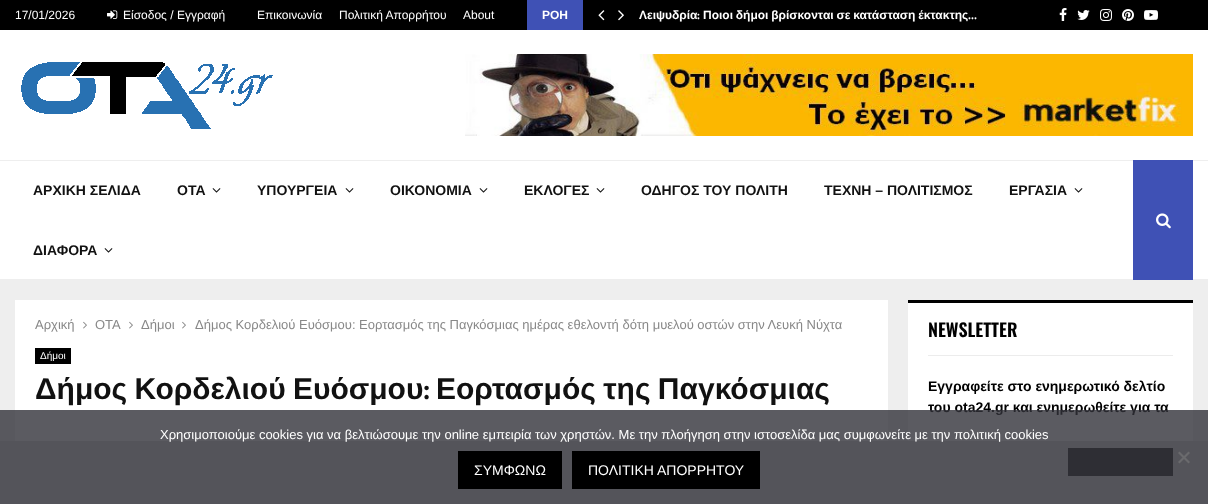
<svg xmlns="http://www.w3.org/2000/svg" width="1208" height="504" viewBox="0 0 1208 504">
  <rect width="100%" height="100%" fill="#eee"/>
  <path d="M0 0h1208v30H0z" fill="#000"/>
  <image x="107" y="10" width="11" height="9" href="img/1.png"/>
  <path d="M527 0h56v30H527z" fill="#3f51b5"/>
  <image x="598" y="10" width="7" height="11" href="img/2.png"/>
  <image x="618" y="10" width="6" height="11" href="img/3.png"/>
  <image x="1059" y="8" width="8" height="13" href="img/4.png"/>
  <image x="1077" y="10" width="13" height="10" href="img/5.png"/>
  <image x="1100" y="9" width="12" height="12" href="img/6.png"/>
  <image x="1122" y="9" width="12" height="12" href="img/7.png"/>
  <image x="1144" y="10" width="14" height="10" href="img/8.png"/>
  <path d="M0 30h1208v130H0z" fill="#fff"/>
  <image x="21" y="62" width="252" height="67" href="img/9.png"/>
  <image x="465" y="54" width="728" height="82" href="img/10.png"/>
  <path d="M0 161h1208v118H0z" fill="#fff"/>
  <image x="212" y="188" width="9" height="5" href="img/11.png"/>
  <image x="345" y="188" width="9" height="5" href="img/11.png"/>
  <image x="479" y="188" width="9" height="5" href="img/11.png"/>
  <image x="596" y="188" width="9" height="5" href="img/11.png"/>
  <image x="1074" y="188" width="9" height="5" href="img/11.png"/>
  <image x="104" y="248" width="9" height="5" href="img/11.png"/>
  <path d="M1133 160h60v120H1133z" fill="#3f51b5"/>
  <image x="1156" y="213" width="15" height="16" href="img/12.png"/>
  <path d="M15 300h873v141H15z" fill="#fff"/>
  <image x="83" y="321" width="4" height="8" href="img/13.png"/>
  <image x="129" y="321" width="4" height="8" href="img/13.png"/>
  <image x="182" y="321" width="4" height="8" href="img/13.png"/>
  <path d="M35 348h36v16H35z" fill="#000"/>
  <path d="M908 303h285v138H908z" fill="#fff"/>
  <path d="M928 355h245v1H928z" fill="#ececec"/>
  <path d="M908 300h285v3H908z" fill="#000"/>
  <path d="M0 441h1208v63H0z" fill="#ddd"/>
  <path d="M1068 448h105v28H1068z" fill="#212121"/>
  <g font-family="Liberation Sans" font-size="12" fill="#fff">
    <text x="15" y="19">17/01/2026</text>
    <text x="123" y="19">Είσοδος / Εγγραφή</text>
    <text x="257" y="19">Επικοινωνία</text>
    <text x="339" y="19">Πολιτική Απορρήτου</text>
    <text x="463" y="19">About</text>
  </g>
  <g font-family="Liberation Sans" font-size="12" font-weight="bold" fill="#fff">
    <text x="542" y="19">ΡΟΗ</text>
    <text x="639" y="19">Λειψυδρία</text>
  </g>
  <text x="697" y="19" font-family="Mukta Vaani" font-size="12" font-weight="600" fill="#fff">:</text>
  <text x="703" y="19" word-spacing="-0.5" font-family="Liberation Sans" font-size="12" font-weight="bold" fill="#fff">Ποιοι δήμοι βρίσκονται σε κατάσταση έκτακτης</text>
  <text x="968" y="19" font-family="Mukta Vaani" font-size="12" font-weight="600" fill="#fff">…</text>
  <g font-family="Liberation Sans" font-size="14" font-weight="bold" fill="#111">
    <text x="33" y="195">ΑΡΧΙΚΗ ΣΕΛΙΔΑ</text>
    <text x="177" y="195">ΟΤΑ</text>
    <text x="257" y="195">ΥΠΟΥΡΓΕΙΑ</text>
    <text x="390" y="195">ΟΙΚΟΝΟΜΙΑ</text>
    <text x="524" y="195">ΕΚΛΟΓΕΣ</text>
    <text x="641" y="195">ΟΔΗΓΟΣ ΤΟΥ ΠΟΛΙΤΗ</text>
    <text x="824" y="195">ΤΕΧΝΗ – ΠΟΛΙΤΙΣΜΟΣ</text>
    <text x="1009" y="195">ΕΡΓΑΣΙΑ</text>
    <text x="33" y="255">ΔΙΑΦΟΡΑ</text>
  </g>
  <g font-family="Liberation Sans" font-size="13" fill="#888">
    <text x="35" y="329">Αρχική</text>
    <text x="95" y="329">ΟΤΑ</text>
    <text x="141" y="329">Δήμοι</text>
    <text x="195" y="329">Δήμος Κορδελιού Ευόσμου: Εορτασμός της Παγκόσμιας ημέρας εθελοντή δότη μυελού οστών στην Λευκή Νύχτα</text>
  </g>
  <text x="40" y="359" font-family="Liberation Sans" font-size="10" fill="#fff">Δήμοι</text>
  <text x="35" y="399" word-spacing="-1" font-family="Liberation Sans" font-size="30" font-weight="bold" fill="#111">Δήμος Κορδελιού Ευόσμου</text>
  <text x="423" y="399" font-family="Mukta Vaani" font-size="30" font-weight="600" fill="#111">:</text>
  <text x="436" y="399" word-spacing="-1" font-family="Liberation Sans" font-size="30" font-weight="bold" fill="#111">Εορτασμός της Παγκόσμιας</text>
  <text x="928" y="337" font-family="Oswald" font-size="18" font-weight="600" fill="#000">NEWSLETTER</text>
  <g font-family="Liberation Sans" font-size="14" font-weight="bold" fill="#000">
    <text x="928" y="391">Εγγραφείτε στο ενημερωτικό δελτίο</text>
    <text x="928" y="412">του ota24.gr και ενημερωθείτε για τα</text>
  </g>
  <path d="M0 410h1208v94H0z" fill="#32323acc"/>
  <text x="160" y="439" font-family="Liberation Sans" font-size="13" fill="#fff">Χρησιμοποιούμε cookies για να βελτιώσουμε την online εμπειρία των χρηστών. Με την πλοήγηση στην ιστοσελίδα μας συμφωνείτε με την πολιτική cookies</text>
  <path d="M1188.5 451.5L1190 453L1179.5 463.5L1178 462Z" fill="#6a6a6d"/>
  <path d="M1178 453L1179.5 451.5L1190 462L1188.5 463.5Z" fill="#6a6a6d"/>
  <path d="M458 451h104v38H458z" fill="#000"/>
  <text x="474" y="475" font-family="Liberation Sans" font-size="14" fill="#fff">ΣΥΜΦΩΝΩ</text>
  <path d="M572 451h188v38H572z" fill="#000"/>
  <text x="588" y="475" font-family="Liberation Sans" font-size="14" fill="#fff">ΠΟΛΙΤΙΚΗ ΑΠΟΡΡΗΤΟΥ</text>
</svg>
